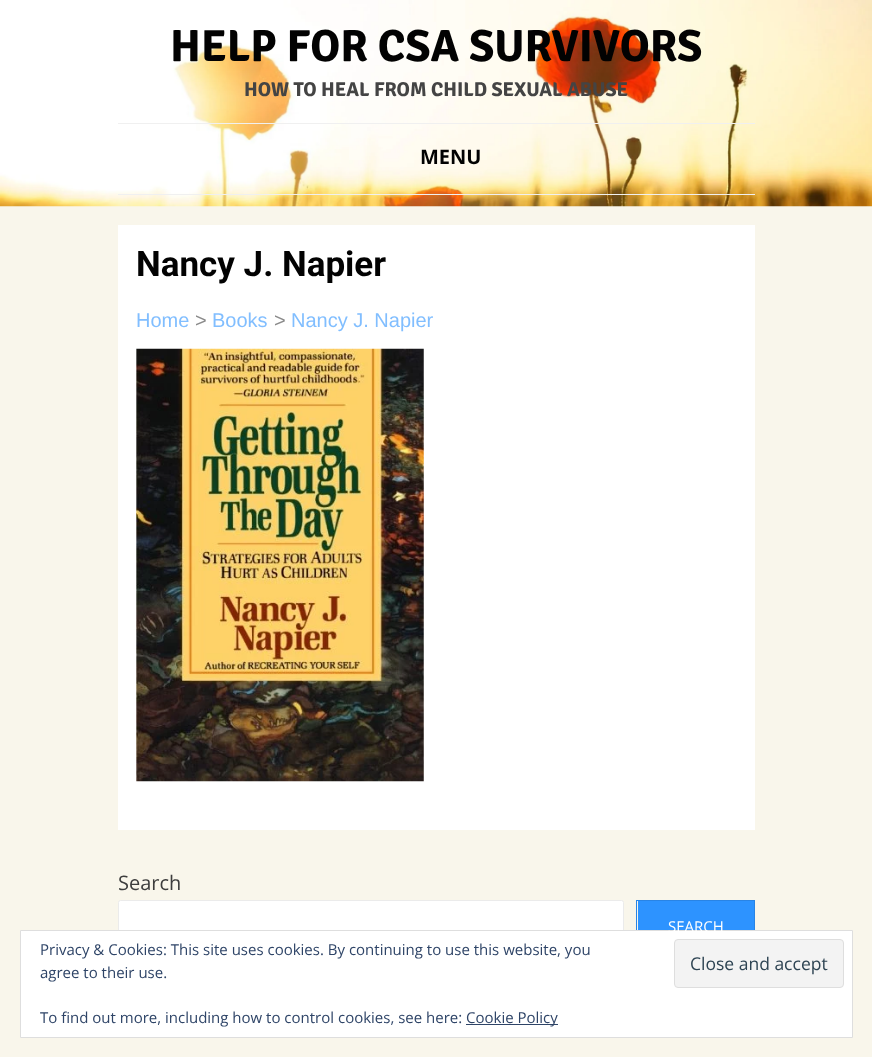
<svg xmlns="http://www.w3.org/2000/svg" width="872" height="1057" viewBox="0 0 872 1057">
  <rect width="100%" height="100%" fill="#f9f6eb"/>
  <image x="0" y="0" width="872" height="207" href="img/1.png"/>
  <path d="M118 123h637v1H118z" fill="#f0f0f0"/>
  <path d="M118 194h637v1H118z" fill="#f0f0f0"/>
  <path d="M118 225h637v605H118z" fill="#fff"/>
  <image x="136" y="348" width="288" height="434" href="img/2.png"/>
  <rect x="118.5" y="900.5" width="505" height="55" rx="2" fill="#fff" stroke="#ebebeb"/>
  <path d="M638 901h116v29H638z" fill="#2d93ff"/>
  <path d="M636 900h119v1H636z" fill="#2984e5"/>
  <path d="M754 900h1v30H754z" fill="#2984e5"/>
  <path d="M636 900h1v30H636z" fill="#2984e5"/>
  <path d="M20.5 930.5h832v107H20.5z" fill="#fff" stroke="#dedede"/>
  <rect x="674.5" y="939.5" width="169" height="48" rx="3.5" fill="#f3f3f3" stroke="#dedede"/>
  <path d="M466 1024h92v1H466z" fill="#2e4467"/>
  <text x="170" y="61" font-family="Signika" font-size="45" font-weight="bold" fill="#020202">HELP FOR CSA SURVIVORS</text>
  <text x="244" y="96" font-family="Signika" font-size="20" font-weight="bold" fill="#444">HOW TO HEAL FROM CHILD SEXUAL ABUSE</text>
  <text x="420" y="164" font-family="Open Sans" font-size="20" font-weight="bold" fill="#020202">MENU</text>
  <text x="136" y="276" font-family="Roboto" font-size="35" font-weight="bold" fill="#020202">Nancy J. Napier</text>
  <text x="136" y="327" font-family="Liberation Sans" font-size="20" fill="#81beff">Home</text>
  <text x="195" y="327" font-family="Liberation Sans" font-size="20" fill="#8b8b8b">&gt;</text>
  <text x="212" y="327" font-family="Liberation Sans" font-size="20" fill="#81beff">Books</text>
  <text x="274" y="327" font-family="Liberation Sans" font-size="20" fill="#8b8b8b">&gt;</text>
  <text x="291" y="327" font-family="Liberation Sans" font-size="20" fill="#81beff">Nancy J. Napier</text>
  <text x="118" y="890" font-family="Open Sans" font-size="20" fill="#3d3d3d">Search</text>
  <text x="668" y="932" font-family="Open Sans" font-size="15" fill="#fff">SEARCH</text>
  <g font-family="Open Sans" font-size="15" fill="#2e4467">
    <text x="40" y="955">Privacy &amp; Cookies: This site uses cookies. By continuing to use this website, you</text>
    <text x="40" y="978">agree to their use.</text>
  </g>
  <text x="690" y="970" font-family="Open Sans" font-size="17.5" fill="#2e4453">Close and accept</text>
  <g font-family="Open Sans" font-size="15" fill="#2e4467">
    <text x="40" y="1023">To find out more, including how to control cookies, see here:</text>
    <text x="466" y="1023">Cookie Policy</text>
  </g>
</svg>
